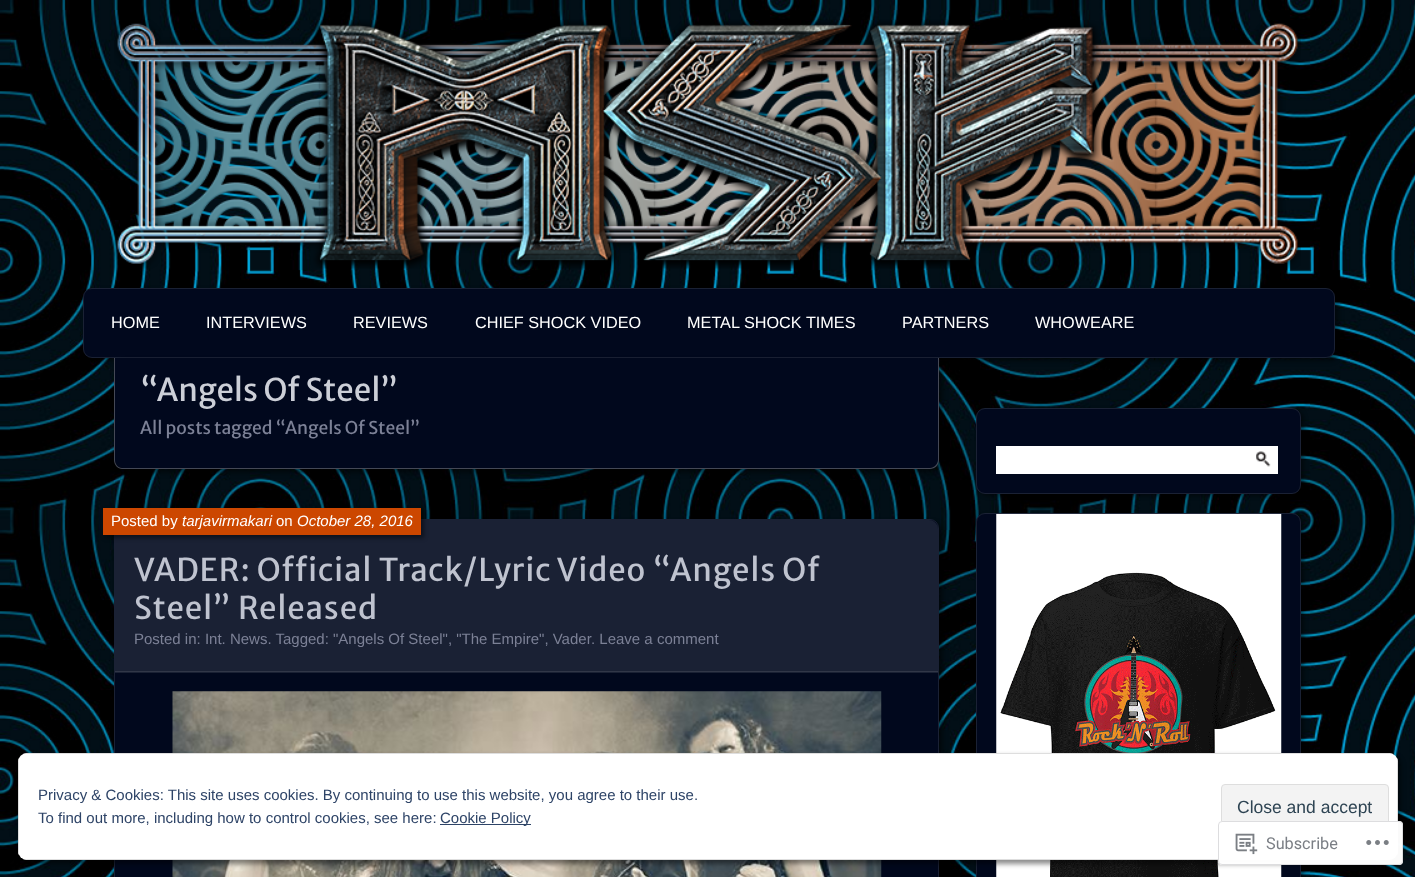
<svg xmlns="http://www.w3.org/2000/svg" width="1415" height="877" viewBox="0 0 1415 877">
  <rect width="100%" height="100%" fill="#fff"/>
  <image x="0" y="0" width="1415" height="877" href="img/1.png"/>
  <image x="114" y="19" width="1187" height="250" href="img/2.png"/>
  <rect x="86" y="291" width="1253" height="70" rx="9" fill="#00000073" filter="blur(2.5px)"/>
  <rect x="83" y="288" width="1252" height="70" rx="9" fill="#01081d"/>
  <rect x="83.5" y="288.5" width="1251" height="69" rx="8.5" fill="none" stroke="#ffffff1a"/>
  <rect x="118" y="361" width="825" height="112" rx="9" fill="#00000073" filter="blur(2.5px)"/>
  <path d="M115 358H938V460C938 464.5 934.5 468 930 468H123C118.5 468 115 464.5 115 460Z" fill="#01081d"/>
  <path d="M114 358H939V460C939 465 935 469 930 469H122C118 469 114 465 114 460ZM115 358H938V460C938 464 934 468 930 468H122C118 468 115 464 115 460Z" fill="#444855" fill-rule="evenodd"/>
  <rect x="118" y="523" width="825" height="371" rx="9" fill="#00000073" filter="blur(2.5px)"/>
  <rect x="114" y="519" width="825" height="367" rx="9" fill="#01081d"/>
  <rect x="114.5" y="519.5" width="824" height="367" rx="8.5" fill="none" stroke="#ffffff1a"/>
  <path d="M124 520H929C934 520 938 524 938 529V673H115V529C115 524 119 520 124 520Z" fill="#ffffff1a"/>
  <path d="M115 671h823v1H115z" fill="#313748"/>
  <path d="M105 510h319v28H105z" fill="#00000073" filter="blur(2px)"/>
  <path d="M103 508h318v27H103z" fill="#cc4700"/>
  <image x="172" y="691" width="710" height="186" href="img/3.png"/>
  <rect x="979" y="410" width="325" height="86" rx="9" fill="#00000073" filter="blur(2px)"/>
  <rect x="976" y="408" width="325" height="86" rx="9" fill="#01081d"/>
  <rect x="976.5" y="408.5" width="324" height="85" rx="8.5" fill="none" stroke="#ffffff1a"/>
  <path d="M996 446h282v28H996z" fill="#fff"/>
  <image x="1256" y="451" width="15" height="16" href="img/4.png"/>
  <rect x="979" y="515" width="325" height="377" rx="9" fill="#00000073" filter="blur(2px)"/>
  <rect x="976" y="513" width="325" height="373" rx="9" fill="#01081d"/>
  <rect x="976.5" y="513.5" width="324" height="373" rx="8.5" fill="none" stroke="#ffffff1a"/>
  <image x="996" y="513" width="286" height="364" href="img/5.png"/>
  <rect x="21" y="756" width="1380" height="108" rx="9" fill="#00000073" filter="blur(2.5px)"/>
  <rect x="18" y="753" width="1380" height="107" rx="9" fill="#fff"/>
  <path d="M18 762V851C18 852 18 854 19 855V758ZM27 753L23 754H1393L1389 753ZM1398 762L1397 758V855C1398 854 1398 852 1398 851ZM1389 860L1393 859H23L27 860Z" fill="#dedede" fill-rule="evenodd"/>
  <rect x="1221.5" y="784.5" width="167" height="44" rx="3.5" fill="#f3f3f3" stroke="#dedede"/>
  <path d="M440 824h91v1H440z" fill="#2e4467"/>
  <rect x="1218" y="821" width="185" height="44" rx="4" fill="#fffffffa"/>
  <rect x="1218.5" y="821.5" width="184" height="43" rx="3.5" fill="none" stroke="#dcdcdefa"/>
  <image x="1235" y="833" width="23" height="22" href="img/6.png"/>
  <image x="1366" y="840" width="23" height="5" href="img/7.png"/>
  <g font-family="Arimo" font-size="16.25" fill="#fff">
    <text x="111" y="328">HOME</text>
    <text x="206" y="328">INTERVIEWS</text>
    <text x="353" y="328">REVIEWS</text>
    <text x="475" y="328">CHIEF SHOCK VIDEO</text>
    <text x="687" y="328">METAL SHOCK TIMES</text>
    <text x="902" y="328">PARTNERS</text>
    <text x="1035" y="328">WHOWEARE</text>
  </g>
  <text x="140" y="401" font-family="Merriweather Sans" font-size="31.25" fill="#cccfd7">“Angels Of Steel”</text>
  <text x="140" y="434" font-family="Merriweather Sans" font-size="17.5" fill="#7c8196">All posts tagged “Angels Of Steel”</text>
  <text x="111" y="526" font-family="Arimo" font-size="15" fill="#fff">Posted by</text>
  <text x="182" y="526" font-family="Arimo" font-size="15" font-style="italic" fill="#fff">tarjavirmakari</text>
  <text x="276" y="526" font-family="Arimo" font-size="15" fill="#fff">on</text>
  <text x="297" y="526" font-family="Arimo" font-size="15" font-style="italic" fill="#fff">October 28, 2016</text>
  <g font-family="Merriweather Sans" font-size="31.25" letter-spacing="0.8" fill="#bfc3cf">
    <text x="134" y="581">VADER: Official Track/Lyric Video “Angels Of</text>
    <text x="134" y="619">Steel” Released</text>
  </g>
  <g font-family="Arimo" font-size="15" fill="#7c8196">
    <text x="134" y="644">Posted in: Int. News. Tagged: "Angels Of Steel", "The Empire", Vader</text>
    <text x="591" y="644">. Leave a comment</text>
  </g>
  <text x="38" y="800" font-family="Arimo" font-size="15" fill="#2e4467">Privacy &amp; Cookies: This site uses cookies. By continuing to use this website, you agree to their use.</text>
  <text x="1237" y="813" font-family="Arimo" font-size="17.5" fill="#2e4453">Close and accept</text>
  <g font-family="Arimo" font-size="15" fill="#2e4467">
    <text x="38" y="823">To find out more, including how to control cookies, see here:</text>
    <text x="440" y="823">Cookie Policy</text>
  </g>
  <text x="1266" y="849" font-family="Roboto" font-size="16.25" fill="#7b7f85">Subscribe</text>
</svg>
